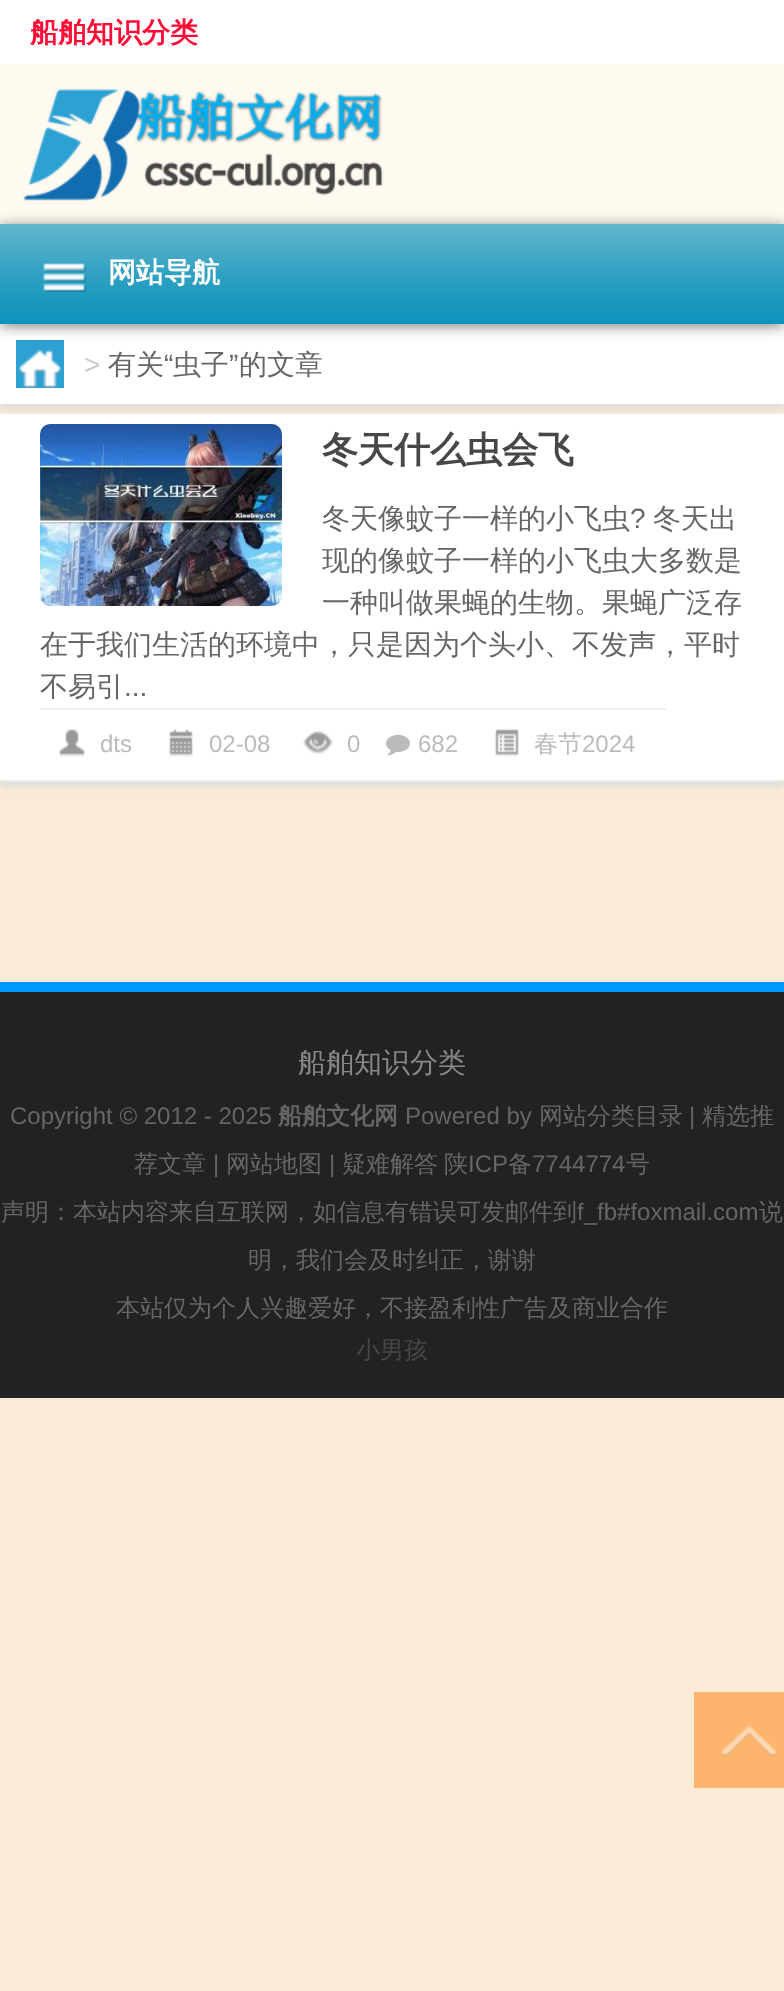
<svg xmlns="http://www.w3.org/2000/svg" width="784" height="1991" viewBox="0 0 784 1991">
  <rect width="100%" height="100%" fill="#faebd7"/>
  <path d="M0 0h784v64H0z" fill="#fff"/>
  <path d="M0 64h784v160H0z" fill="#fffaf0"/>
  <image x="23" y="89" width="360" height="112" href="img/1.png"/>
  <path d="M0 328h784v80H0z" fill="#d9d9d9" filter="blur(4px)"/>
  <path d="M0 324h784v80H0z" fill="#fff"/>
  <path d="M16 340h48v48H16z" fill="#2ea1d3"/>
  <path d="M0 226h784v100H0z" fill="#00000080" filter="blur(7px)"/>
  <image x="0" y="224" width="784" height="100" href="img/2.png"/>
  <image x="43" y="263" width="44" height="29" href="img/3.png"/>
  <image x="19" y="349" width="42" height="39" href="img/4.png"/>
  <path d="M0 418h784v368H0z" fill="#d9d9d9" filter="blur(4px)"/>
  <path d="M0 414h784v366H0z" fill="#fff"/>
  <path d="M0 780h784v2H0z" fill="#eee"/>
  <image x="40" y="424" width="242" height="182" href="img/5.png"/>
  <path d="M40 708h626v2H40z" fill="#eee"/>
  <image x="59" y="729" width="26" height="28" href="img/6.png"/>
  <image x="169" y="729" width="24" height="28" href="img/7.png"/>
  <image x="303" y="731" width="30" height="24" href="img/8.png"/>
  <image x="386" y="734" width="24" height="22" href="img/9.png"/>
  <image x="495" y="729" width="24" height="28" href="img/10.png"/>
  <path d="M0 992h784v406H0z" fill="#222"/>
  <path d="M0 982h784v10H0z" fill="#09f"/>
  <path d="M694 1692h90v96H694z" fill="#fdb46c"/>
  <image x="720" y="1725" width="57" height="32" href="img/11.png"/>
  <text x="30" y="42" font-family="WenQuanYi Zen Hei" font-size="28" font-weight="bold" fill="#ff0c36">船舶知识分类</text>
  <text x="108" y="282" font-family="WenQuanYi Zen Hei" font-size="28" font-weight="bold" fill="#fff">网站导航</text>
  <text x="84" y="374" font-family="Liberation Sans" font-size="28" fill="#ccc">&gt;</text>
  <text x="108" y="374" font-family="WenQuanYi Zen Hei" font-size="28" font-weight="500" fill="#666">有关</text>
  <text x="164" y="374" font-family="Liberation Sans" font-size="28" fill="#666">“</text>
  <text x="173" y="374" font-family="WenQuanYi Zen Hei" font-size="28" font-weight="500" fill="#666">虫子</text>
  <text x="229" y="374" font-family="Liberation Sans" font-size="28" fill="#666">”</text>
  <text x="239" y="374" font-family="WenQuanYi Zen Hei" font-size="28" font-weight="500" fill="#666">的文章</text>
  <text x="322" y="462" font-family="WenQuanYi Zen Hei" font-size="36" font-weight="bold" fill="#474747">冬天什么虫会飞</text>
  <text x="322" y="528" font-family="WenQuanYi Zen Hei" font-size="28" font-weight="500" fill="#666">冬天像蚊子一样的小飞虫</text>
  <text x="630" y="528" font-family="Liberation Sans" font-size="28" fill="#666">?</text>
  <g font-family="WenQuanYi Zen Hei" font-size="28" font-weight="500" fill="#666">
    <text x="653" y="528">冬天出</text>
    <text x="322" y="570">现的像蚊子一样的小飞虫大多数是</text>
    <text x="322" y="612">一种叫做果蝇的生物。果蝇广泛存</text>
    <text x="40" y="654">在于我们生活的环境中，只是因为个头小、不发声，平时</text>
    <text x="40" y="696">不易引</text>
  </g>
  <text x="124" y="696" font-family="Liberation Sans" font-size="28" fill="#666">...</text>
  <g font-family="Liberation Sans" font-size="24" fill="#bbb">
    <text x="100" y="752">dts</text>
    <text x="209" y="752">02-08</text>
    <text x="347" y="752">0</text>
    <text x="418" y="752">682</text>
  </g>
  <text x="534" y="752" font-family="WenQuanYi Zen Hei" font-size="24" font-weight="500" fill="#bbb">春节</text>
  <text x="582" y="752" font-family="Liberation Sans" font-size="24" fill="#bbb">2024</text>
  <text x="298" y="1072" font-family="WenQuanYi Zen Hei" font-size="28" font-weight="500" fill="#888">船舶知识分类</text>
  <text x="10" y="1124" font-family="Liberation Sans" font-size="24" fill="#666">Copyright © 2012 - 2025</text>
  <text x="278" y="1124" font-family="WenQuanYi Zen Hei" font-size="24" font-weight="bold" fill="#666">船舶文化网</text>
  <text x="405" y="1124" font-family="Liberation Sans" font-size="24" fill="#666">Powered by</text>
  <text x="539" y="1124" font-family="WenQuanYi Zen Hei" font-size="24" font-weight="500" fill="#666">网站分类目录</text>
  <text x="689" y="1124" font-family="Liberation Sans" font-size="24" fill="#666">|</text>
  <g font-family="WenQuanYi Zen Hei" font-size="24" font-weight="500" fill="#666">
    <text x="702" y="1124">精选推</text>
    <text x="134" y="1172">荐文章</text>
  </g>
  <text x="213" y="1172" font-family="Liberation Sans" font-size="24" fill="#666">|</text>
  <text x="226" y="1172" font-family="WenQuanYi Zen Hei" font-size="24" font-weight="500" fill="#666">网站地图</text>
  <text x="329" y="1172" font-family="Liberation Sans" font-size="24" fill="#666">|</text>
  <g font-family="WenQuanYi Zen Hei" font-size="24" font-weight="500" fill="#666">
    <text x="342" y="1172">疑难解答</text>
    <text x="444" y="1172">陕</text>
  </g>
  <text x="468" y="1172" font-family="Liberation Sans" font-size="24" fill="#666">ICP</text>
  <text x="508" y="1172" font-family="WenQuanYi Zen Hei" font-size="24" font-weight="500" fill="#666">备</text>
  <text x="532" y="1172" font-family="Liberation Sans" font-size="24" fill="#666">7744774</text>
  <g font-family="WenQuanYi Zen Hei" font-size="24" font-weight="500" fill="#666">
    <text x="626" y="1172">号</text>
    <text x="1" y="1220">声明：本站内容来自互联网，如信息有错误可发邮件到</text>
  </g>
  <text x="577" y="1220" font-family="Liberation Sans" font-size="24" fill="#666">f_fb#foxmail.com</text>
  <g font-family="WenQuanYi Zen Hei" font-size="24" font-weight="500" fill="#666">
    <text x="759" y="1220">说</text>
    <text x="248" y="1268">明，我们会及时纠正，谢谢</text>
    <text x="116" y="1316">本站仅为个人兴趣爱好，不接盈利性广告及商业合作</text>
  </g>
  <text x="356" y="1358" font-family="WenQuanYi Zen Hei" font-size="24" font-weight="500" fill="#474747">小男孩</text>
</svg>
